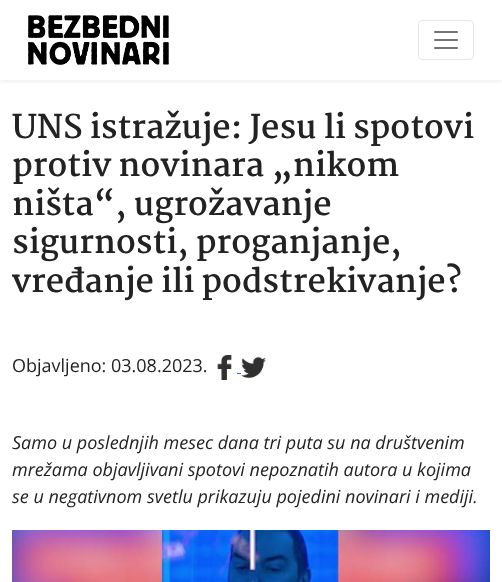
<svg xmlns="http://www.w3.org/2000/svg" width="502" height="582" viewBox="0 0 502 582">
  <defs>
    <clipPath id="clip1"><path d="M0 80h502v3H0z"/></clipPath>
  </defs>
  <rect width="100%" height="100%" fill="#fff"/>
  <g clip-path="url(#clip1)">
    <path d="M0 0h502v80H0z" fill="#0000001c" filter="blur(3.5px)"/>
  </g>
  <image x="28" y="15" width="141" height="50" href="img/1.png"/>
  <rect x="418.5" y="20.5" width="55" height="39" rx="3.5" fill="none" stroke="#e6e6e6"/>
  <image x="434" y="31" width="24" height="18" href="img/2.png"/>
  <image x="217" y="355" width="15" height="25" href="img/3.png"/>
  <path d="M237 373h4v1H237z" fill="#0d6efd"/>
  <image x="241" y="357" width="25" height="21" href="img/4.png"/>
  <image x="12" y="530" width="478" height="52" href="img/5.png"/>
  <g font-family="Martel" font-size="32" font-weight="bold" fill="#222">
    <text x="12" y="138">UNS istražuje: Jesu li spotovi</text>
    <text x="12" y="176">protiv novinara „nikom</text>
    <text x="12" y="215">ništa“, ugrožavanje</text>
    <text x="12" y="253">sigurnosti, proganjanje,</text>
    <text x="12" y="292">vređanje ili podstrekivanje?</text>
  </g>
  <text x="12" y="372" font-family="Open Sans" font-size="18" fill="#222">Objavljeno: 03.08.2023.</text>
  <g font-family="Open Sans" font-size="18" font-style="italic" fill="#222">
    <text x="12" y="449">Samo u poslednjih mesec dana tri puta su na društvenim</text>
    <text x="12" y="476">mrežama objavljivani spotovi nepoznatih autora u kojima</text>
    <text x="12" y="503">se u negativnom svetlu prikazuju pojedini novinari i mediji.</text>
  </g>
</svg>
